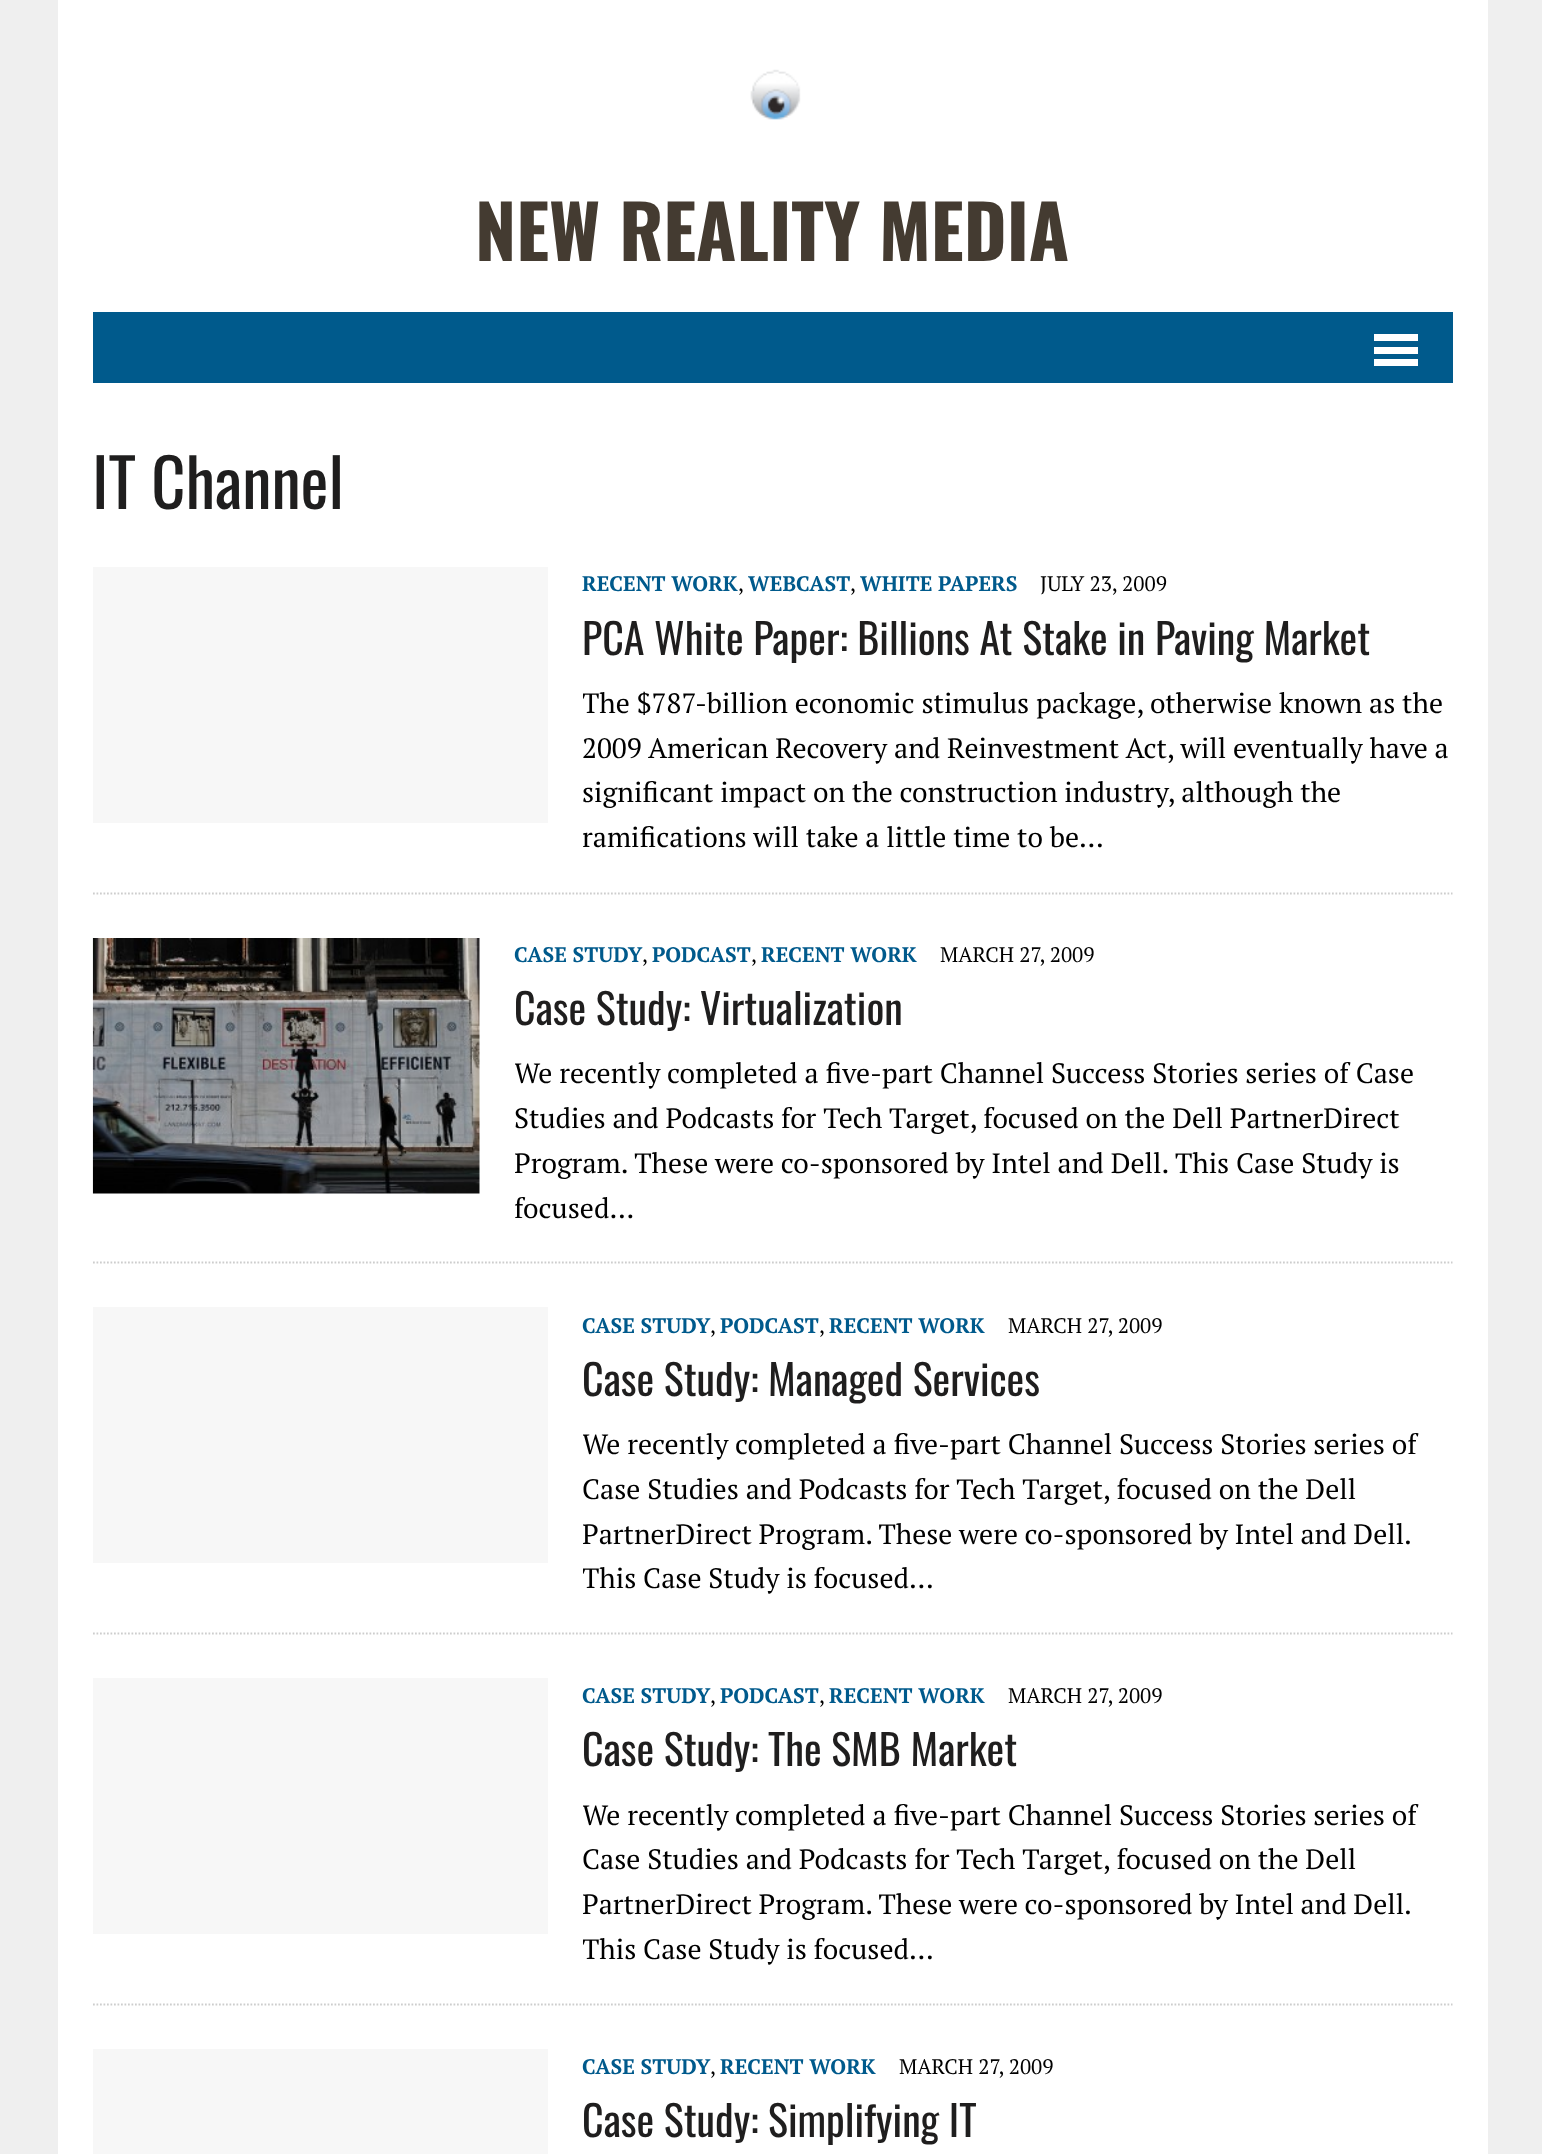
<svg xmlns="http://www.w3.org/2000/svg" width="1542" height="2154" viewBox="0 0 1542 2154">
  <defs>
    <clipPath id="clip1"><path d="M583 681h870v180H583z"/></clipPath>
    <clipPath id="clip2"><path d="M515 1052h938v178H515z"/></clipPath>
    <clipPath id="clip3"><path d="M583 1423h870v178H583z"/></clipPath>
    <clipPath id="clip4"><path d="M583 1794h870v178H583z"/></clipPath>
  </defs>
  <rect width="100%" height="100%" fill="#efefef"/>
  <path d="M58 0h1430v2154H58z" fill="#fff"/>
  <image x="750" y="69" width="51" height="51" href="img/1.png"/>
  <path d="M93 312h1360v71H93z" fill="#005a8c"/>
  <path d="M1374 334h44v7H1374z" fill="#fff"/>
  <path d="M1374 347h44v7H1374z" fill="#fff"/>
  <path d="M1374 359h44v7H1374z" fill="#fff"/>
  <path d="M93 567h455v256H93z" fill="#f7f7f7"/>
  <path d="M93 893.5H1452.5" fill="none" stroke="#cdcdcd" stroke-width="1.8" stroke-dasharray="1.75 1.75"/>
  <image x="92" y="938" width="388" height="256" href="img/2.png"/>
  <path d="M93 1262.5H1452.5" fill="none" stroke="#cdcdcd" stroke-width="1.8" stroke-dasharray="1.75 1.75"/>
  <path d="M93 1307h455v256H93z" fill="#f7f7f7"/>
  <path d="M93 1633.5H1452.5" fill="none" stroke="#cdcdcd" stroke-width="1.8" stroke-dasharray="1.75 1.75"/>
  <path d="M93 1678h455v256H93z" fill="#f7f7f7"/>
  <path d="M93 2004.5H1452.5" fill="none" stroke="#cdcdcd" stroke-width="1.8" stroke-dasharray="1.75 1.75"/>
  <path d="M93 2049h455v105H93z" fill="#f7f7f7"/>
  <text x="475" y="261" font-family="Oswald" font-size="73.5" font-weight="bold" fill="#443b31">NEW REALITY MEDIA</text>
  <text x="92" y="509" font-family="Oswald" font-size="66.5" fill="#1f1e1e">IT Channel</text>
  <text x="582" y="591" font-family="PT Serif" font-size="21" font-weight="bold" fill="#005a8c">RECENT WORK</text>
  <text x="738" y="591" font-family="PT Serif" font-size="21" fill="#000">,</text>
  <text x="748" y="591" font-family="PT Serif" font-size="21" font-weight="bold" fill="#005a8c">WEBCAST</text>
  <text x="850" y="591" font-family="PT Serif" font-size="21" fill="#000">,</text>
  <text x="860" y="591" font-family="PT Serif" font-size="21" font-weight="bold" fill="#005a8c">WHITE PAPERS</text>
  <text x="1040" y="591" font-family="PT Serif" font-size="21" fill="#000">JULY 23, 2009</text>
  <text x="582" y="655" font-family="Oswald" font-size="42" fill="#1f1e1e">PCA White Paper: Billions At Stake in Paving Market</text>
  <g clip-path="url(#clip1)">
    <text x="582" y="713" font-family="PT Serif" font-size="28" fill="#000">The $787-billion economic stimulus package, otherwise known as the</text>
  </g>
  <g font-family="PT Serif" font-size="28" fill="#000">
    <text x="582" y="758">2009 American Recovery and Reinvestment Act, will eventually have a</text>
    <text x="582" y="802">significant impact on the construction industry, although the</text>
  </g>
  <g clip-path="url(#clip1)">
    <text x="582" y="847" font-family="PT Serif" font-size="28" fill="#000">ramifications will take a little time to be…</text>
  </g>
  <text x="514" y="962" font-family="PT Serif" font-size="21" font-weight="bold" fill="#005a8c">CASE STUDY</text>
  <text x="642" y="962" font-family="PT Serif" font-size="21" fill="#000">,</text>
  <text x="652" y="962" font-family="PT Serif" font-size="21" font-weight="bold" fill="#005a8c">PODCAST</text>
  <text x="751" y="962" font-family="PT Serif" font-size="21" fill="#000">,</text>
  <text x="761" y="962" font-family="PT Serif" font-size="21" font-weight="bold" fill="#005a8c">RECENT WORK</text>
  <text x="940" y="962" font-family="PT Serif" font-size="21" fill="#000">MARCH 27, 2009</text>
  <text x="514" y="1025" font-family="Oswald" font-size="42" fill="#1f1e1e">Case Study: Virtualization</text>
  <g clip-path="url(#clip2)">
    <text x="514" y="1083" font-family="PT Serif" font-size="28" fill="#000">We recently completed a five-part Channel Success Stories series of Case</text>
  </g>
  <text x="514" y="1128" font-family="PT Serif" font-size="28" fill="#000">Studies and Podcasts for Tech Target, focused on the Dell PartnerDirect</text>
  <g clip-path="url(#clip2)">
    <g font-family="PT Serif" font-size="28" fill="#000">
      <text x="514" y="1173">Program. These were co-sponsored by Intel and Dell. This Case Study is</text>
      <text x="514" y="1218">focused…</text>
    </g>
  </g>
  <text x="582" y="1333" font-family="PT Serif" font-size="21" font-weight="bold" fill="#005a8c">CASE STUDY</text>
  <text x="710" y="1333" font-family="PT Serif" font-size="21" fill="#000">,</text>
  <text x="720" y="1333" font-family="PT Serif" font-size="21" font-weight="bold" fill="#005a8c">PODCAST</text>
  <text x="819" y="1333" font-family="PT Serif" font-size="21" fill="#000">,</text>
  <text x="829" y="1333" font-family="PT Serif" font-size="21" font-weight="bold" fill="#005a8c">RECENT WORK</text>
  <text x="1008" y="1333" font-family="PT Serif" font-size="21" fill="#000">MARCH 27, 2009</text>
  <text x="582" y="1396" font-family="Oswald" font-size="42" fill="#1f1e1e">Case Study: Managed Services</text>
  <g clip-path="url(#clip3)">
    <text x="582" y="1454" font-family="PT Serif" font-size="28" fill="#000">We recently completed a five-part Channel Success Stories series of</text>
  </g>
  <text x="582" y="1499" font-family="PT Serif" font-size="28" fill="#000">Case Studies and Podcasts for Tech Target, focused on the Dell</text>
  <g clip-path="url(#clip3)">
    <g font-family="PT Serif" font-size="28" fill="#000">
      <text x="582" y="1544" word-spacing="-0.25">PartnerDirect Program. These were co-sponsored by Intel and Dell.</text>
      <text x="582" y="1588">This Case Study is focused…</text>
    </g>
  </g>
  <text x="582" y="1703" font-family="PT Serif" font-size="21" font-weight="bold" fill="#005a8c">CASE STUDY</text>
  <text x="710" y="1703" font-family="PT Serif" font-size="21" fill="#000">,</text>
  <text x="720" y="1703" font-family="PT Serif" font-size="21" font-weight="bold" fill="#005a8c">PODCAST</text>
  <text x="819" y="1703" font-family="PT Serif" font-size="21" fill="#000">,</text>
  <text x="829" y="1703" font-family="PT Serif" font-size="21" font-weight="bold" fill="#005a8c">RECENT WORK</text>
  <text x="1008" y="1703" font-family="PT Serif" font-size="21" fill="#000">MARCH 27, 2009</text>
  <text x="582" y="1766" font-family="Oswald" font-size="42" fill="#1f1e1e">Case Study: The SMB Market</text>
  <g clip-path="url(#clip4)">
    <text x="582" y="1825" font-family="PT Serif" font-size="28" fill="#000">We recently completed a five-part Channel Success Stories series of</text>
  </g>
  <text x="582" y="1869" font-family="PT Serif" font-size="28" fill="#000">Case Studies and Podcasts for Tech Target, focused on the Dell</text>
  <g clip-path="url(#clip4)">
    <g font-family="PT Serif" font-size="28" fill="#000">
      <text x="582" y="1914" word-spacing="-0.25">PartnerDirect Program. These were co-sponsored by Intel and Dell.</text>
      <text x="582" y="1959">This Case Study is focused…</text>
    </g>
  </g>
  <text x="582" y="2074" font-family="PT Serif" font-size="21" font-weight="bold" fill="#005a8c">CASE STUDY</text>
  <text x="710" y="2074" font-family="PT Serif" font-size="21" fill="#000">,</text>
  <text x="720" y="2074" font-family="PT Serif" font-size="21" font-weight="bold" fill="#005a8c">RECENT WORK</text>
  <text x="899" y="2074" font-family="PT Serif" font-size="21" fill="#000">MARCH 27, 2009</text>
  <text x="582" y="2137" font-family="Oswald" font-size="42" fill="#1f1e1e">Case Study: Simplifying IT</text>
</svg>
